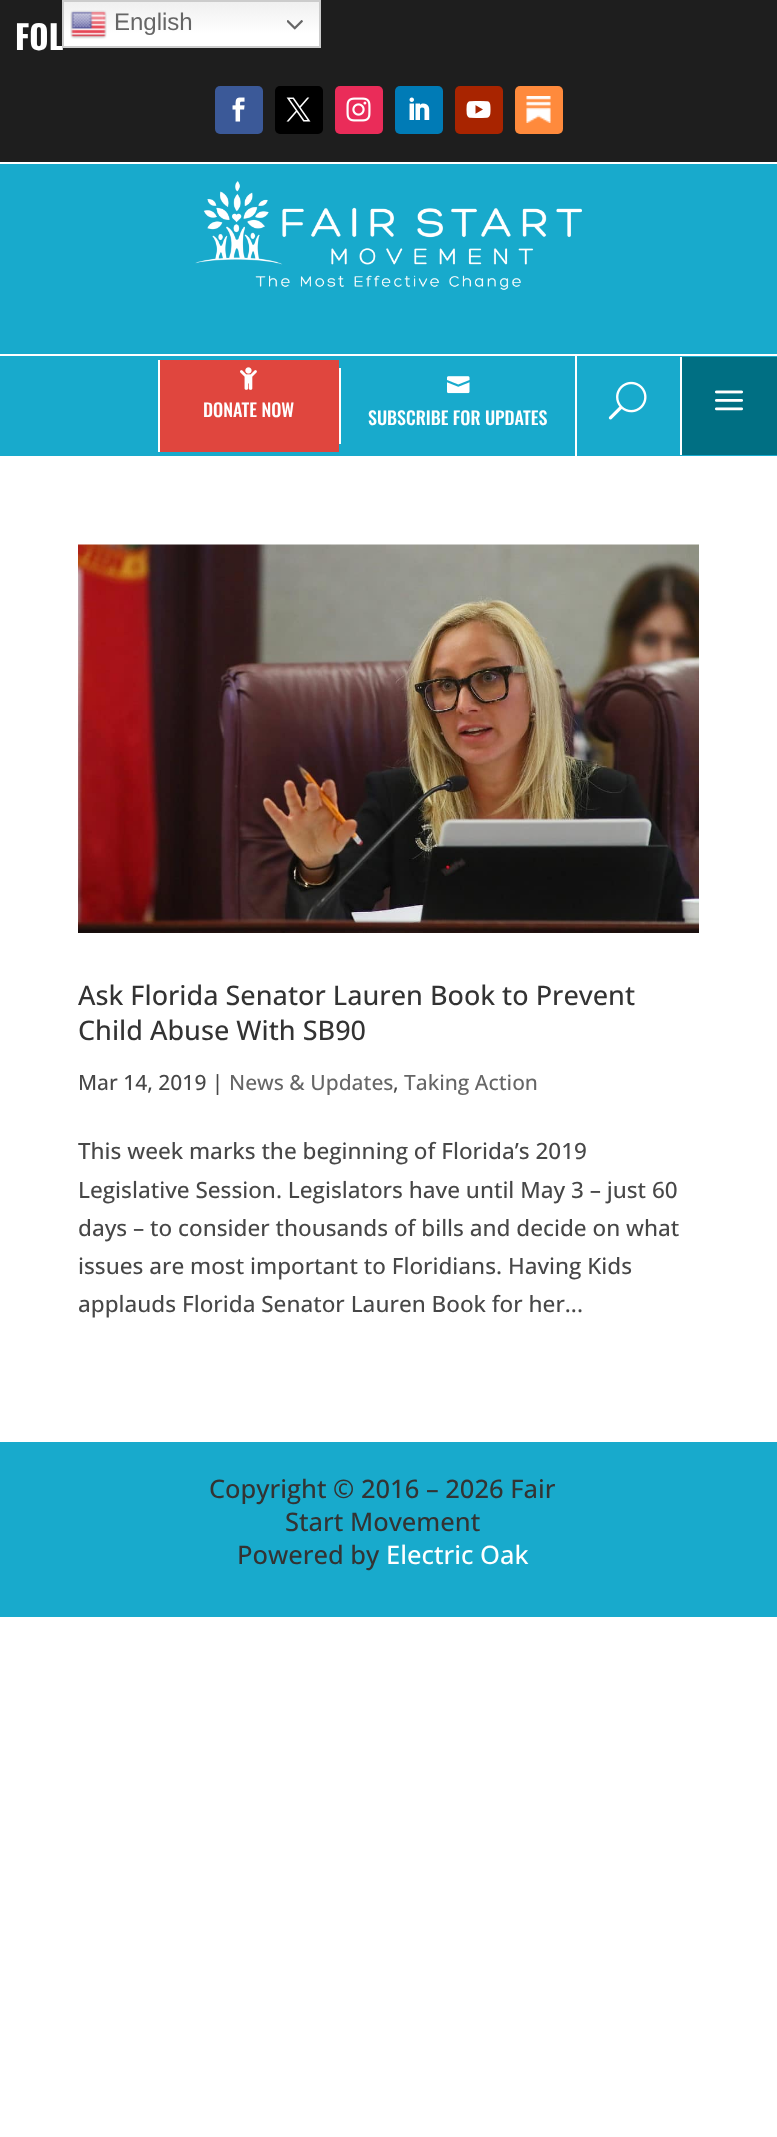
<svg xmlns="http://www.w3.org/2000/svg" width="777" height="2137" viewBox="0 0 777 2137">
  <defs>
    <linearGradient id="g1" gradientUnits="userSpaceOnUse" x1="191" y1="0" x2="191" y2="48"><stop offset="0" stop-color="#efefef"/><stop offset="0.7" stop-color="#fff"/></linearGradient>
  </defs>
  <rect width="100%" height="100%" fill="#fff"/>
  <path d="M0 0h777v162H0z" fill="#1e1e1e"/>
  <path d="M64 2h255v44H64z" fill="url(#g1)"/>
  <rect x="215" y="86" width="48" height="48" rx="5" fill="#3b5998"/>
  <image x="232" y="97" width="13" height="25" href="img/3.png"/>
  <rect x="275" y="86" width="48" height="48" rx="5" fill="#000"/>
  <image x="286" y="97" width="25" height="25" href="img/4.png"/>
  <rect x="335" y="86" width="48" height="48" rx="5" fill="#ea2c59"/>
  <image x="346" y="97" width="25" height="25" href="img/5.png"/>
  <rect x="395" y="86" width="48" height="48" rx="5" fill="#007bb6"/>
  <image x="409" y="97" width="21" height="23" href="img/6.png"/>
  <rect x="455" y="86" width="48" height="48" rx="5" fill="#a82400"/>
  <image x="466" y="101" width="25" height="17" href="img/7.png"/>
  <rect x="515" y="86" width="48" height="48" rx="5" fill="#ff8a3c"/>
  <image x="526" y="96" width="25" height="27" href="img/8.png"/>
  <path d="M0 164h777v292H0z" fill="#18aacc"/>
  <image x="195" y="181" width="387" height="109" href="img/9.png"/>
  <path d="M0 354h777v2H0z" fill="#fff"/>
  <path d="M160 360h179v92H160z" fill="#e0463e"/>
  <path d="M158 360h2v92H158z" fill="#fff"/>
  <image x="240" y="367" width="17" height="23" href="img/10.png"/>
  <path d="M339 368h2v76H339z" fill="#fff"/>
  <image x="447" y="376" width="23" height="18" href="img/11.png"/>
  <path d="M575 356h2v100H575z" fill="#fff"/>
  <image x="608" y="381" width="39" height="39" href="img/12.png"/>
  <path d="M682 357h95v98H682z" fill="#006f83"/>
  <path d="M680 357h2v98H680z" fill="#fff"/>
  <image x="715" y="390" width="28" height="21" href="img/13.png"/>
  <image x="78" y="544" width="621" height="389" href="img/14.png"/>
  <path d="M0 1442h777v175H0z" fill="#18aacc"/>
  <text x="15" y="50" font-family="Oswald" font-size="33" font-weight="bold" fill="#fff">FOL</text>
  <path d="M63 1h257v46H63z" fill="none" stroke="#ccc" stroke-width="2"/>
  <image x="287" y="20" width="16" height="10" href="img/2.png"/>
  <image x="70" y="10" width="37" height="29" href="img/1.png"/>
  <text x="114" y="30" font-family="Liberation Sans" font-size="24" fill="#666">English</text>
  <g font-family="Oswald" font-size="18" font-weight="500" fill="#fff">
    <text x="203" y="417">DONATE NOW</text>
    <text x="368" y="425">SUBSCRIBE FOR UPDATES</text>
  </g>
  <g font-family="Open Sans" font-size="27" font-weight="500" fill="#333">
    <text x="78" y="1005">Ask Florida Senator Lauren Book to Prevent</text>
    <text x="78" y="1040">Child Abuse With SB90</text>
  </g>
  <text x="78" y="1090" font-family="Open Sans" font-size="21" font-weight="500" fill="#474747">Mar 14, 2019 |</text>
  <text x="229" y="1090" font-family="Open Sans" font-size="21" font-weight="500" fill="#666">News &amp; Updates</text>
  <text x="393" y="1090" font-family="Open Sans" font-size="21" font-weight="500" fill="#474747">,</text>
  <text x="404" y="1090" font-family="Open Sans" font-size="21" font-weight="500" fill="#666">Taking Action</text>
  <g font-family="Open Sans" font-size="22.5" font-weight="500" fill="#474747">
    <text x="78" y="1159">This week marks the beginning of Florida’s 2019</text>
    <text x="78" y="1198">Legislative Session. Legislators have until May 3 – just 60</text>
    <text x="78" y="1236">days – to consider thousands of bills and decide on what</text>
    <text x="78" y="1274">issues are most important to Floridians. Having Kids</text>
    <text x="78" y="1312">applauds Florida Senator Lauren Book for her...</text>
  </g>
  <g font-family="Open Sans" font-size="25.5" font-weight="500" fill="#333">
    <text x="209" y="1498">Copyright © 2016 – 2026 Fair</text>
    <text x="285" y="1531">Start Movement</text>
    <text x="237" y="1564">Powered by</text>
  </g>
  <text x="386" y="1564" font-family="Open Sans" font-size="25.5" font-weight="500" fill="#fff">Electric Oak</text>
</svg>
